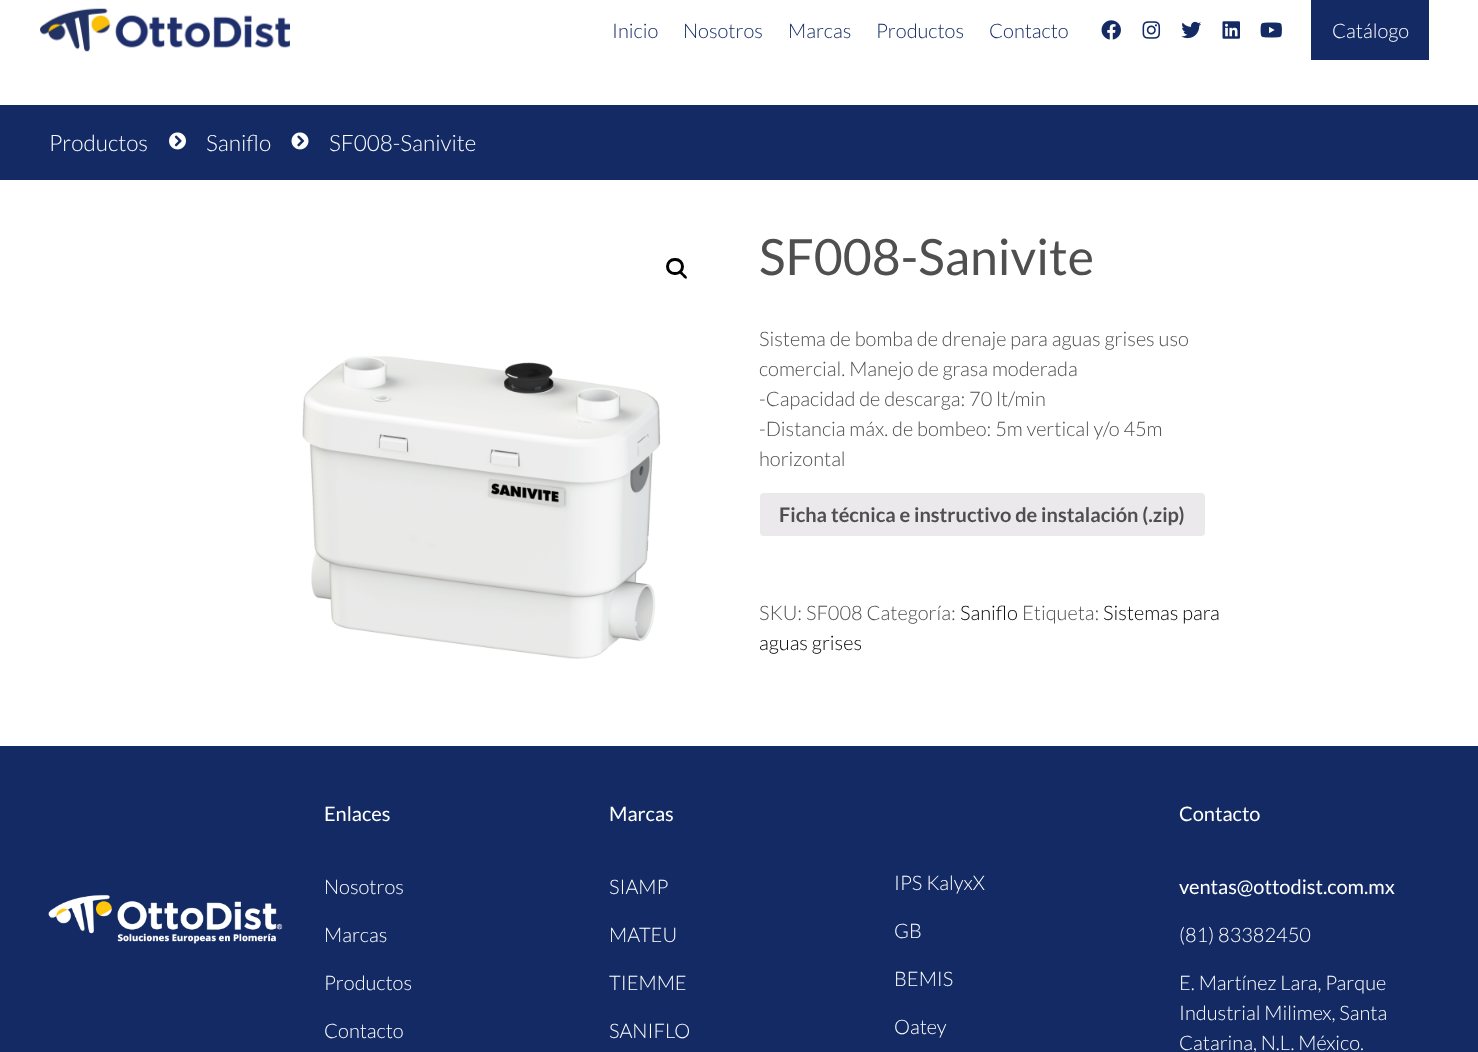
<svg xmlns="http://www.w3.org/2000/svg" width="1478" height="1052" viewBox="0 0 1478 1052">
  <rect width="100%" height="100%" fill="#fff"/>
  <image x="40" y="8" width="250" height="44" href="img/1.png"/>
  <image x="1101" y="20" width="20" height="20" href="img/2.png"/>
  <image x="1142" y="21" width="19" height="18" href="img/3.png"/>
  <image x="1181" y="21" width="21" height="18" href="img/4.png"/>
  <image x="1222" y="21" width="18" height="18" href="img/5.png"/>
  <image x="1260" y="22" width="22" height="16" href="img/6.png"/>
  <path d="M1311 0h118v60H1311z" fill="#132a64"/>
  <path d="M0 105h1478v75H0z" fill="#132a64"/>
  <image x="169" y="132" width="17" height="18" href="img/7.png"/>
  <image x="291" y="132" width="18" height="18" href="img/8.png"/>
  <rect x="667.5" y="259.5" width="15" height="14" rx="7" fill="none" stroke="#000" stroke-width="3"/>
  <path d="M679.5 271C681 270 683 273 684 274C685 274.5 688 277 686.5 278.5C685 279.5 683 276.5 682 275.5C681.5 275 678 272.5 679.5 271Z" fill="#000"/>
  <image x="302" y="356" width="359" height="303" href="img/9.png"/>
  <rect x="760" y="493" width="445" height="43" rx="4" fill="#ebe9eb"/>
  <path d="M0 746h1478v306H0z" fill="#132a64"/>
  <image x="48" y="894" width="235" height="50" href="img/10.png"/>
  <g font-family="Lato" font-size="20" font-weight="300" fill="#132a64">
    <text x="612" y="38">Inicio</text>
    <text x="683" y="38">Nosotros</text>
    <text x="788" y="38">Marcas</text>
    <text x="876" y="38">Productos</text>
    <text x="989" y="38">Contacto</text>
  </g>
  <text x="1332" y="38" font-family="Lato" font-size="20" font-weight="300" fill="#fff">Catálogo</text>
  <g font-family="Lato" font-size="22.5" font-weight="300" fill="#fff">
    <text x="49" y="151">Productos</text>
    <text x="206" y="151">Saniflo</text>
    <text x="329" y="151">SF008-Sanivite</text>
  </g>
  <text x="759" y="275" font-family="Lato" font-size="50" fill="#4f4f4f">SF008-Sanivite</text>
  <g font-family="Lato" font-size="20" font-weight="300" fill="#4f4f4f">
    <text x="759" y="346">Sistema de bomba de drenaje para aguas grises uso</text>
    <text x="759" y="376">comercial. Manejo de grasa moderada</text>
    <text x="759" y="406">-Capacidad de descarga: 70 lt/min</text>
    <text x="759" y="436">-Distancia máx. de bombeo: 5m vertical y/o 45m</text>
    <text x="759" y="466">horizontal</text>
  </g>
  <text x="779" y="522" font-family="Lato" font-size="20" font-weight="bold" fill="#4f4f4f">Ficha técnica e instructivo de instalación (.zip)</text>
  <text x="759" y="620" font-family="Lato" font-size="20" font-weight="300" fill="#4f4f4f">SKU: SF008 Categoría:</text>
  <text x="960" y="620" font-family="Lato" font-size="20" font-weight="300" fill="#000">Saniflo</text>
  <text x="1022" y="620" font-family="Lato" font-size="20" font-weight="300" fill="#4f4f4f">Etiqueta:</text>
  <g font-family="Lato" font-size="20" font-weight="300" fill="#000">
    <text x="1103" y="620">Sistemas para</text>
    <text x="759" y="650">aguas grises</text>
  </g>
  <text x="324" y="821" font-family="Lato" font-size="20" fill="#fff">Enlaces</text>
  <g font-family="Lato" font-size="20" font-weight="300" fill="#fff">
    <text x="324" y="894">Nosotros</text>
    <text x="324" y="942">Marcas</text>
    <text x="324" y="990">Productos</text>
    <text x="324" y="1038">Contacto</text>
  </g>
  <text x="609" y="821" font-family="Lato" font-size="20" fill="#fff">Marcas</text>
  <g font-family="Lato" font-size="20" font-weight="300" fill="#fff">
    <text x="609" y="894">SIAMP</text>
    <text x="609" y="942">MATEU</text>
    <text x="609" y="990">TIEMME</text>
    <text x="609" y="1038">SANIFLO</text>
    <text x="894" y="890">IPS KalyxX</text>
    <text x="894" y="938">GB</text>
    <text x="894" y="986">BEMIS</text>
    <text x="894" y="1034">Oatey</text>
  </g>
  <g font-family="Lato" font-size="20" fill="#fff">
    <text x="1179" y="821">Contacto</text>
    <text x="1179" y="894">ventas@ottodist.com.mx</text>
  </g>
  <g font-family="Lato" font-size="20" font-weight="300" fill="#fff">
    <text x="1179" y="942">(81) 83382450</text>
    <text x="1179" y="990">E. Martínez Lara, Parque</text>
    <text x="1179" y="1020">Industrial Milimex, Santa</text>
    <text x="1179" y="1050">Catarina, N.L. México.</text>
  </g>
</svg>
